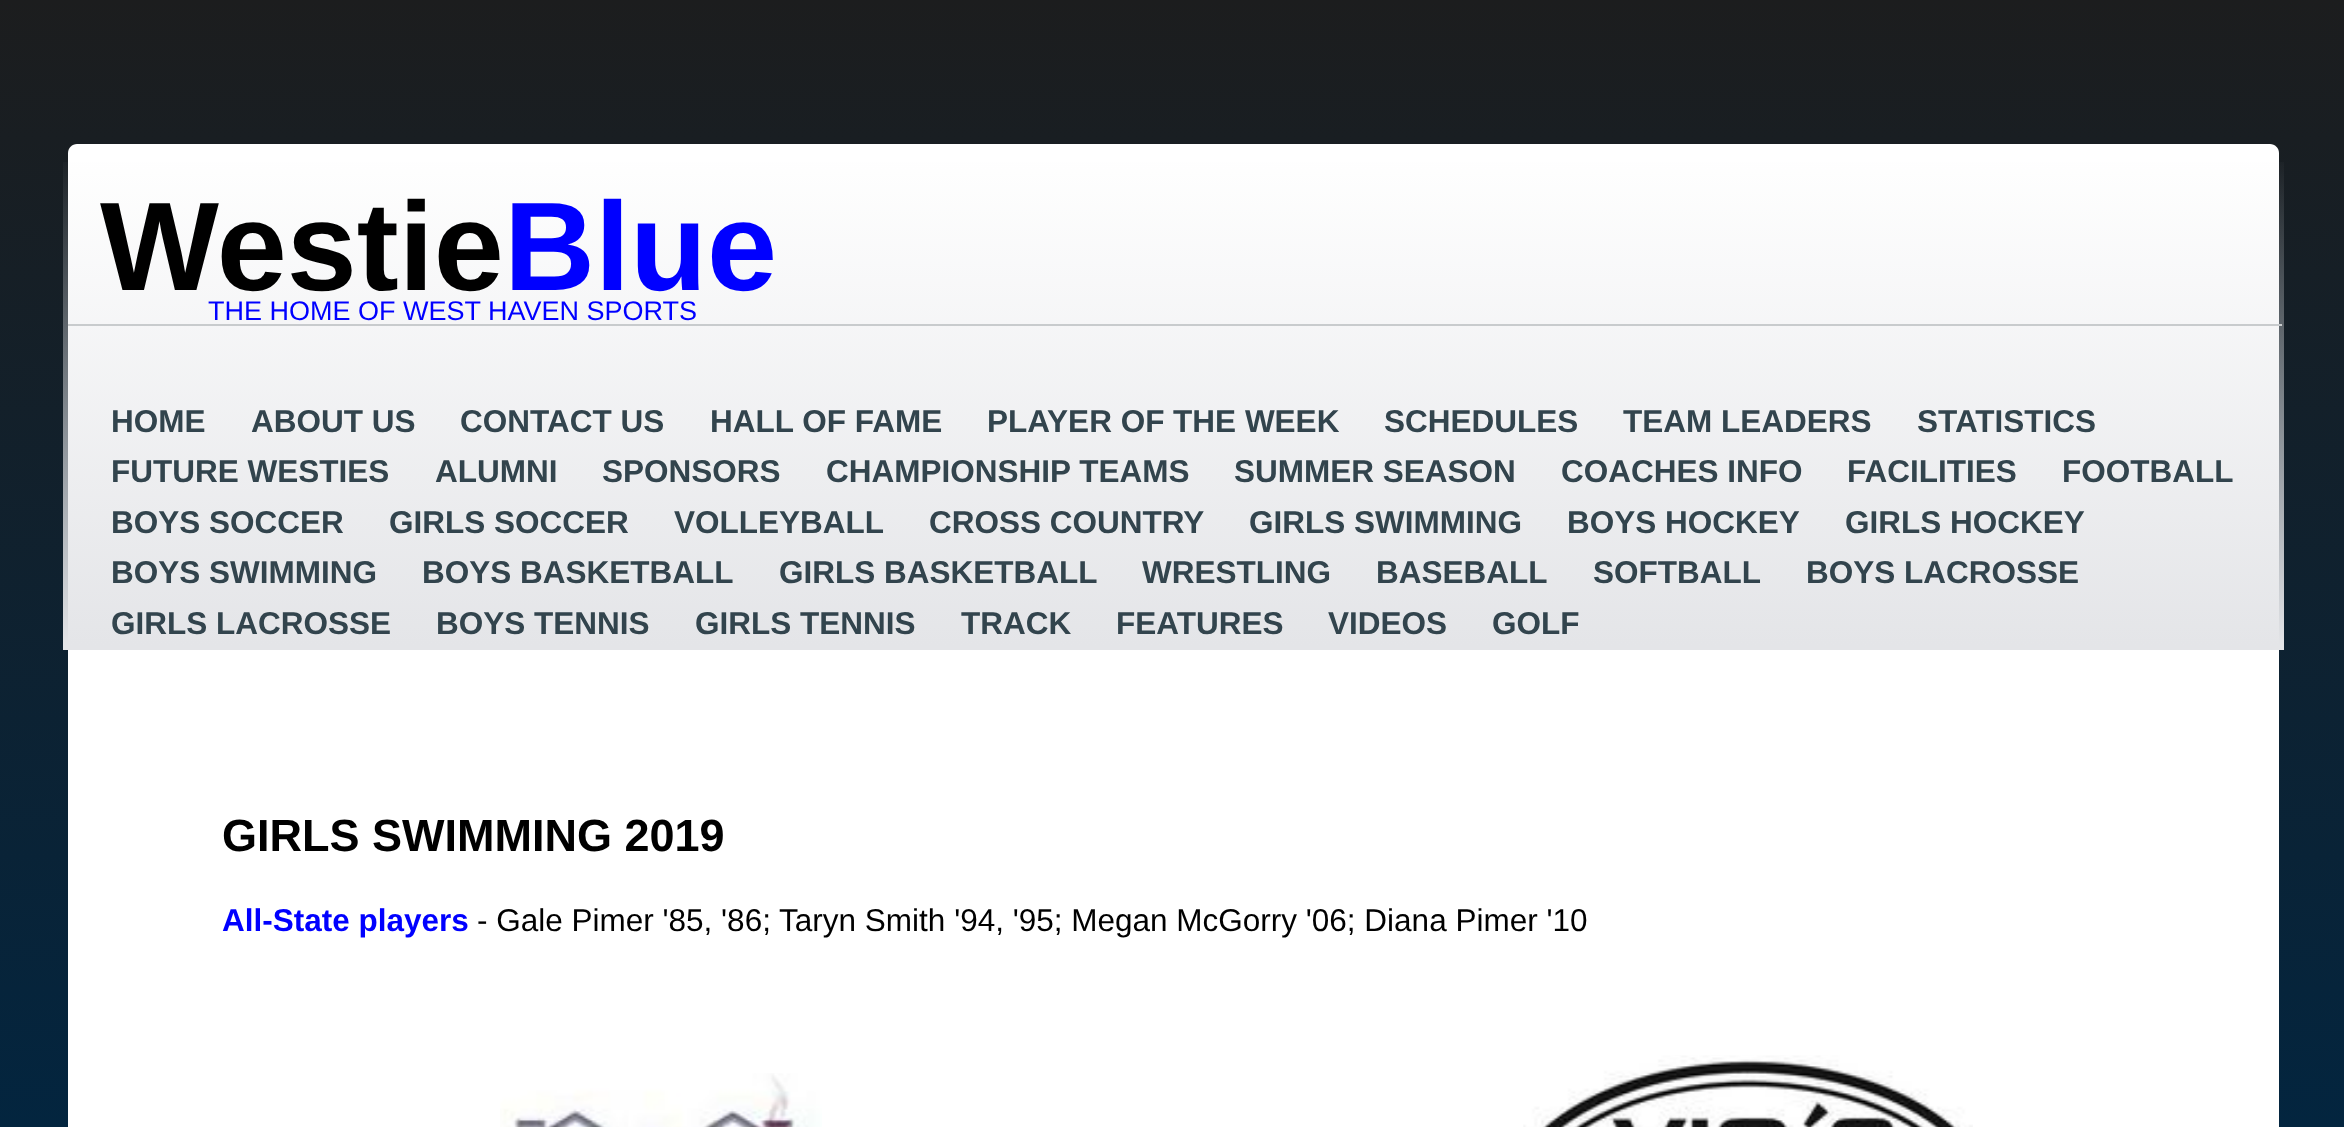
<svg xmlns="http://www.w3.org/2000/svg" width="2344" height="1127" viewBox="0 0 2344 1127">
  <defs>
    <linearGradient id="g1" gradientUnits="userSpaceOnUse" x1="1172" y1="0" x2="1172" y2="1127"><stop offset="0" stop-color="#1c1d1e"/><stop offset="1" stop-color="#03253f"/></linearGradient>
    <linearGradient id="g2" gradientUnits="userSpaceOnUse" x1="1173" y1="151" x2="1173" y2="650"><stop offset="0" stop-color="#e4e5e8" stop-opacity="0"/><stop offset="0.99" stop-color="#e4e5e8"/><stop offset="1" stop-color="#e4e5e8"/></linearGradient>
  </defs>
  <rect width="100%" height="100%" fill="#fff"/>
  <path d="M0 0h2344v1127H0z" fill="url(#g1)"/>
  <path d="M77 144H2270C2275 144 2279 148 2279 153V1127H68V153C68 148 72 144 77 144Z" fill="#fff"/>
  <path d="M63 162h2221v488H63z" fill="url(#g2)"/>
  <path d="M68 324h2214v2H68z" fill="#c8cbcd"/>
  <image x="500" y="1073" width="322" height="54" href="img/1.png"/>
  <image x="1523" y="1055" width="450" height="72" href="img/2.png"/>
  <text x="100" y="290" font-family="Liberation Sans" font-size="126" font-weight="bold" fill="#000">Westie</text>
  <text x="504" y="290" font-family="Liberation Sans" font-size="126" font-weight="bold" fill="#00f">Blue</text>
  <text x="208" y="320" font-family="Liberation Sans" font-size="27" fill="#00f">THE HOME OF WEST HAVEN SPORTS</text>
  <g font-family="Liberation Sans" font-size="31.5" font-weight="bold" fill="#32444d">
    <text x="111" y="432">HOME</text>
    <text x="251" y="432">ABOUT US</text>
    <text x="460" y="432">CONTACT US</text>
    <text x="710" y="432">HALL OF FAME</text>
    <text x="987" y="432">PLAYER OF THE WEEK</text>
    <text x="1384" y="432">SCHEDULES</text>
    <text x="1623" y="432">TEAM LEADERS</text>
    <text x="1917" y="432">STATISTICS</text>
    <text x="111" y="482">FUTURE WESTIES</text>
    <text x="435" y="482">ALUMNI</text>
    <text x="602" y="482">SPONSORS</text>
    <text x="826" y="482">CHAMPIONSHIP TEAMS</text>
    <text x="1234" y="482">SUMMER SEASON</text>
    <text x="1561" y="482">COACHES INFO</text>
    <text x="1847" y="482">FACILITIES</text>
    <text x="2062" y="482">FOOTBALL</text>
    <text x="111" y="533">BOYS SOCCER</text>
    <text x="389" y="533">GIRLS SOCCER</text>
    <text x="674" y="533">VOLLEYBALL</text>
    <text x="929" y="533">CROSS COUNTRY</text>
    <text x="1249" y="533">GIRLS SWIMMING</text>
    <text x="1567" y="533">BOYS HOCKEY</text>
    <text x="1845" y="533">GIRLS HOCKEY</text>
    <text x="111" y="583">BOYS SWIMMING</text>
    <text x="422" y="583">BOYS BASKETBALL</text>
    <text x="779" y="583">GIRLS BASKETBALL</text>
    <text x="1142" y="583">WRESTLING</text>
    <text x="1376" y="583">BASEBALL</text>
    <text x="1593" y="583">SOFTBALL</text>
    <text x="1806" y="583">BOYS LACROSSE</text>
    <text x="111" y="634">GIRLS LACROSSE</text>
    <text x="436" y="634">BOYS TENNIS</text>
    <text x="695" y="634">GIRLS TENNIS</text>
    <text x="961" y="634">TRACK</text>
    <text x="1116" y="634">FEATURES</text>
    <text x="1328" y="634">VIDEOS</text>
    <text x="1492" y="634">GOLF</text>
  </g>
  <text x="222" y="851" font-family="Liberation Sans" font-size="45" font-weight="bold" fill="#000">GIRLS SWIMMING 2019</text>
  <text x="222" y="931" font-family="Liberation Sans" font-size="31.5" font-weight="bold" fill="#00f">All-State players</text>
  <text x="477" y="931" font-family="Liberation Sans" font-size="31.5" fill="#000">- Gale Pimer '85, '86; Taryn Smith '94, '95; Megan McGorry '06; Diana Pimer '10</text>
</svg>
